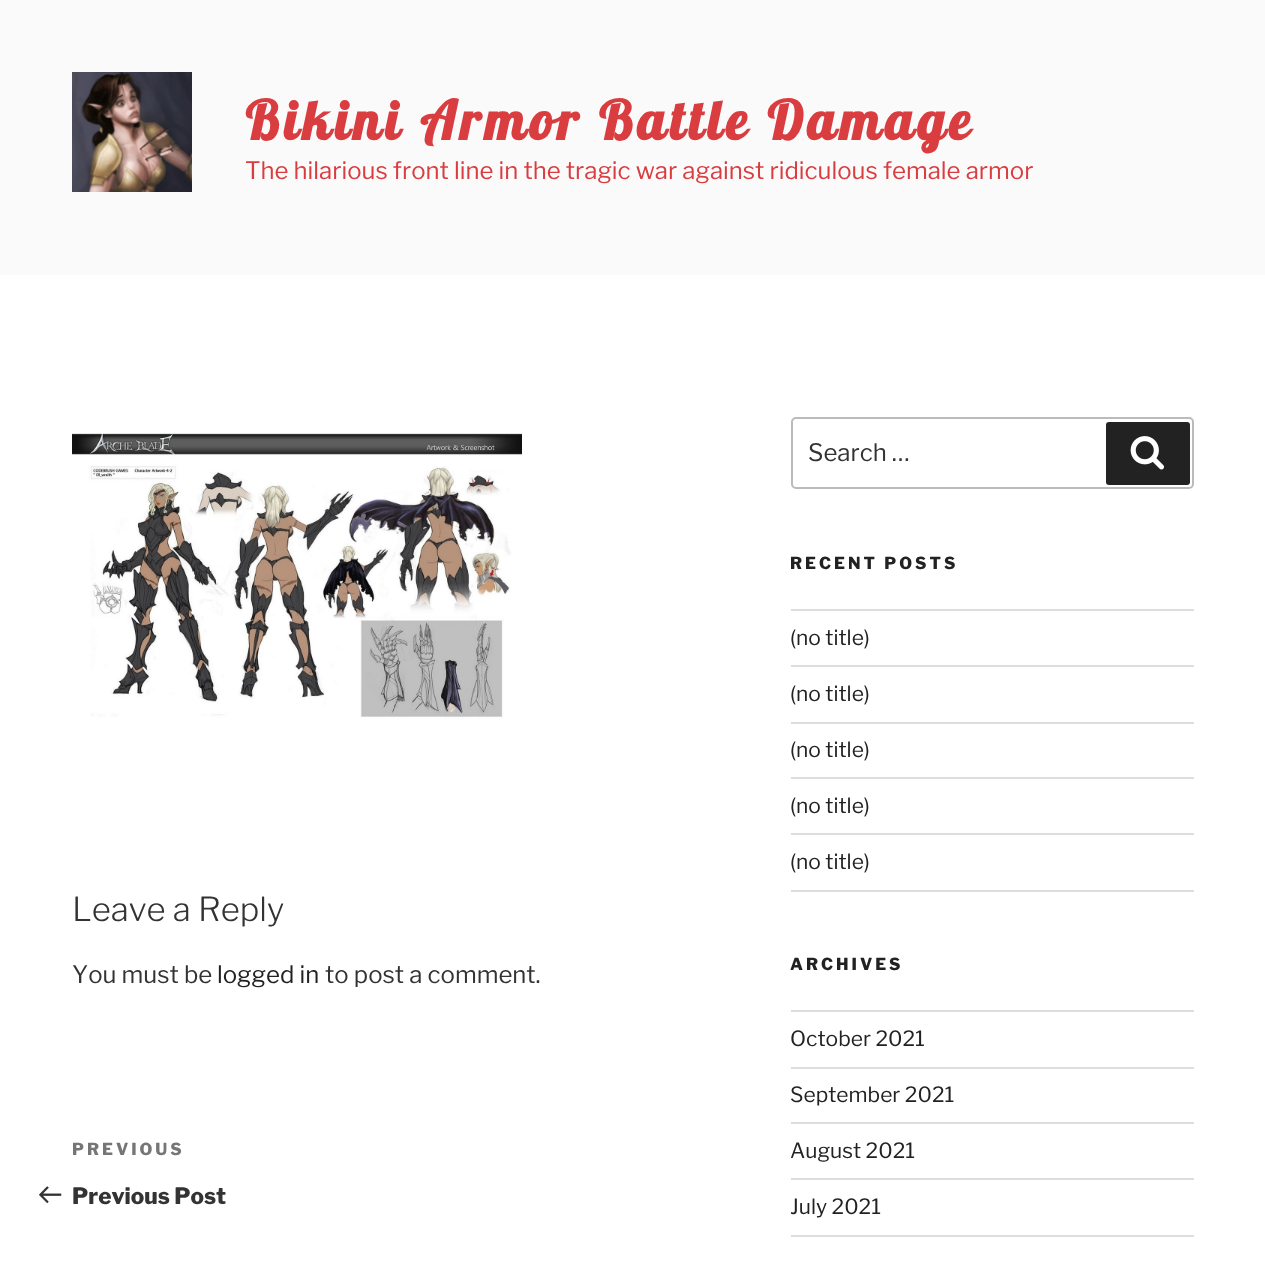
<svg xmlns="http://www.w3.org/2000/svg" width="1265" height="1262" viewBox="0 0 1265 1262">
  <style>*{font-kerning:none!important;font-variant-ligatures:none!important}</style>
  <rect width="100%" height="100%" fill="#fafafa"/>
  <image x="72" y="72" width="120" height="120" href="img/1.png"/>
  <path d="M0 275h1265v987H0z" fill="#fff"/>
  <image x="72" y="433" width="450" height="286" href="img/2.png"/>
  <image x="39" y="1186" width="23" height="18" href="img/3.png"/>
  <rect x="792" y="418" width="401" height="70" rx="4" fill="none" stroke="#bbb" stroke-width="2"/>
  <rect x="1106" y="422" width="84" height="63" rx="3" fill="#222"/>
  <image x="1130" y="436" width="34" height="34" href="img/4.png"/>
  <path d="M791 609h403v2H791z" fill="#ddd"/>
  <path d="M791 665h403v2H791z" fill="#ddd"/>
  <path d="M791 722h403v2H791z" fill="#ddd"/>
  <path d="M791 777h403v2H791z" fill="#ddd"/>
  <path d="M791 833h403v2H791z" fill="#ddd"/>
  <path d="M791 890h403v2H791z" fill="#ddd"/>
  <path d="M791 1010h403v2H791z" fill="#ddd"/>
  <path d="M791 1067h403v2H791z" fill="#ddd"/>
  <path d="M791 1122h403v2H791z" fill="#ddd"/>
  <path d="M791 1178h403v2H791z" fill="#ddd"/>
  <path d="M791 1235h403v2H791z" fill="#ddd"/>
  <text x="245" y="140" font-family="Lobster" font-size="54" font-weight="bold" letter-spacing="4.3" fill="#d93d40">Bikini Armor Battle Damage</text>
  <text x="245" y="179" font-family="Libre Franklin" font-size="24" fill="#d93d40">The hilarious front line in the tragic war against ridiculous female armor</text>
  <text x="72" y="921" font-family="Libre Franklin" font-size="33" font-weight="300" fill="#333">Leave a Reply</text>
  <text x="72" y="983" font-family="Libre Franklin" font-size="24" fill="#333">You must be</text>
  <text x="217" y="983" font-family="Libre Franklin" font-size="24" fill="#222">logged in</text>
  <text x="325" y="983" font-family="Libre Franklin" font-size="24" fill="#333">to post a comment.</text>
  <text x="72" y="1155" font-family="Libre Franklin" font-size="16.5" font-weight="800" letter-spacing="3" fill="#767676">PREVIOUS</text>
  <text x="72" y="1204" font-family="Libre Franklin" font-size="22.5" font-weight="800" fill="#333">Previous Post</text>
  <text x="808" y="461" font-family="Libre Franklin" font-size="24" fill="#333">Search …</text>
  <text x="790" y="569" font-family="Libre Franklin" font-size="16.5" font-weight="800" letter-spacing="3" fill="#222">RECENT POSTS</text>
  <g font-family="Libre Franklin" font-size="21" fill="#222">
    <text x="790" y="645">(no title)</text>
    <text x="790" y="701">(no title)</text>
    <text x="790" y="757">(no title)</text>
    <text x="790" y="813">(no title)</text>
    <text x="790" y="869">(no title)</text>
  </g>
  <text x="790" y="970" font-family="Libre Franklin" font-size="16.5" font-weight="800" letter-spacing="3" fill="#222">ARCHIVES</text>
  <g font-family="Libre Franklin" font-size="21" fill="#222">
    <text x="790" y="1046">October 2021</text>
    <text x="790" y="1102">September 2021</text>
    <text x="790" y="1158">August 2021</text>
    <text x="790" y="1214">July 2021</text>
  </g>
</svg>
